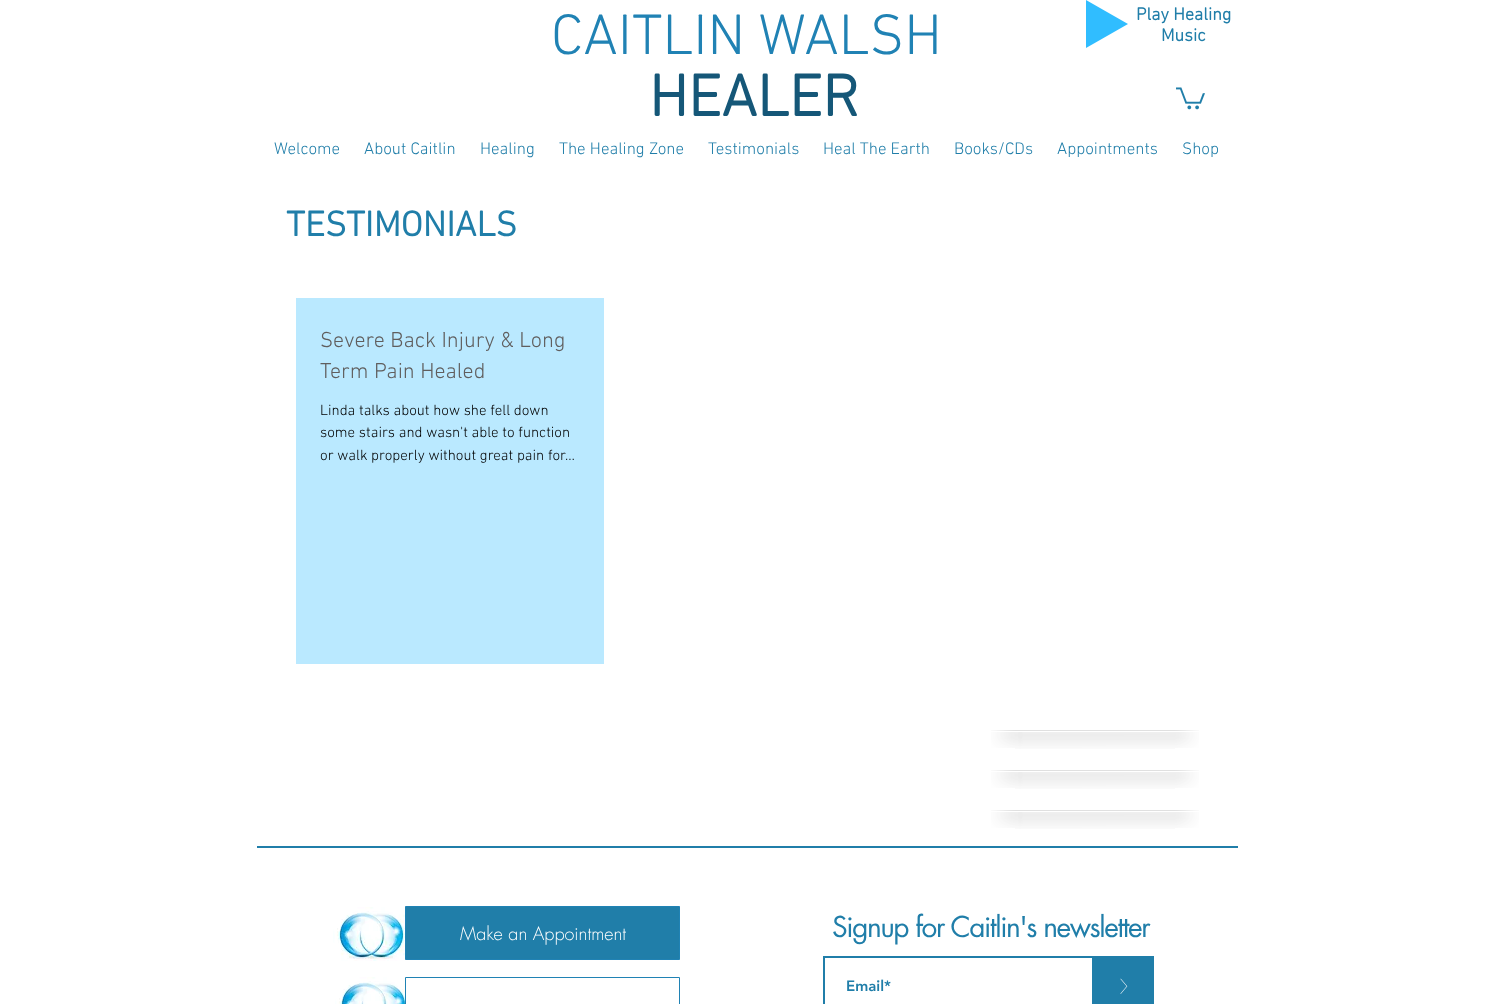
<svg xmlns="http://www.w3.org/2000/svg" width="1492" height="1004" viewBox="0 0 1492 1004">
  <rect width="100%" height="100%" fill="#fff"/>
  <path d="M1086 48V0L1128 24Z" fill="#30bdff"/>
  <image x="1176" y="87" width="29" height="23" href="img/1.png"/>
  <path d="M296 298h308v366H296z" fill="#bae9ff"/>
  <image x="991" y="730" width="24" height="18" href="img/2.png"/>
  <image x="1015" y="730" width="160" height="19" href="img/3.png"/>
  <image x="1175" y="730" width="24" height="18" href="img/4.png"/>
  <image x="991" y="770" width="24" height="18" href="img/2.png"/>
  <image x="1015" y="770" width="160" height="19" href="img/3.png"/>
  <image x="1175" y="770" width="24" height="18" href="img/4.png"/>
  <image x="991" y="810" width="24" height="18" href="img/2.png"/>
  <image x="1015" y="810" width="160" height="19" href="img/3.png"/>
  <image x="1175" y="810" width="24" height="18" href="img/4.png"/>
  <path d="M257 846h981v2H257z" fill="#207ea9"/>
  <image x="333" y="907" width="73" height="54" href="img/5.png"/>
  <path d="M405.5 906.5h274v53H405.5z" fill="#207ea9" stroke="#2082b4"/>
  <image x="335" y="977" width="70" height="27" href="img/6.png"/>
  <path d="M405.5 977.5h274v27H405.5z" fill="none" stroke="#2082b4"/>
  <path d="M824 957h269v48H824z" fill="none" stroke="#207ea9" stroke-width="2"/>
  <path d="M1094 956h60v48H1094z" fill="#207ea9"/>
  <image x="1120" y="978" width="8" height="16" href="img/7.png"/>
  <text x="551" y="54" font-family="'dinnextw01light'" font-size="58" font-weight="300" fill="#2082b4">CAITLIN WALSH</text>
  <g font-family="'dinnextw01light'" font-size="18" font-weight="bold" fill="#207ea9">
    <text x="1136" y="20">Play Healing</text>
    <text x="1161" y="41">Music</text>
  </g>
  <text x="649" y="116" font-family="'dinnextw01light'" font-size="60" font-weight="bold" fill="#155778">HEALER</text>
  <g font-family="'dinnextw01light'" font-size="17" font-weight="300" fill="#207ea9">
    <text x="274" y="154">Welcome</text>
    <text x="364" y="154">About Caitlin</text>
    <text x="480" y="154">Healing</text>
    <text x="559" y="154">The Healing Zone</text>
    <text x="708" y="154">Testimonials</text>
    <text x="823" y="154">Heal The Earth</text>
    <text x="954" y="154">Books/CDs</text>
    <text x="1057" y="154">Appointments</text>
    <text x="1182" y="154">Shop</text>
  </g>
  <text x="286" y="236" font-family="'dinnextw01light'" font-size="36" font-weight="bold" fill="#207ea9">TESTIMONIALS</text>
  <g font-family="'dinnextw01light'" font-size="22" font-weight="300" fill="#605e5e">
    <text x="320" y="347">Severe Back Injury &amp; Long</text>
    <text x="320" y="378">Term Pain Healed</text>
  </g>
  <g font-family="'dinnextw01light'" font-size="15" font-weight="300" fill="#000">
    <text x="320" y="415">Linda talks about how she fell down</text>
    <text x="320" y="437">some stairs and wasn't able to function</text>
    <text x="320" y="460">or walk properly without great pain for…</text>
  </g>
  <text x="460" y="940" font-family="futura" font-size="18" font-weight="300" fill="#fff">Make an Appointment</text>
  <text x="832" y="937" font-family="futura" font-size="28" letter-spacing="-1.4" fill="#207ea9">Signup for Caitlin's newsletter</text>
  <text x="846" y="991" font-family="'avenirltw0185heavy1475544'" font-size="15" font-weight="900" fill="#207ea9">Email*</text>
</svg>
